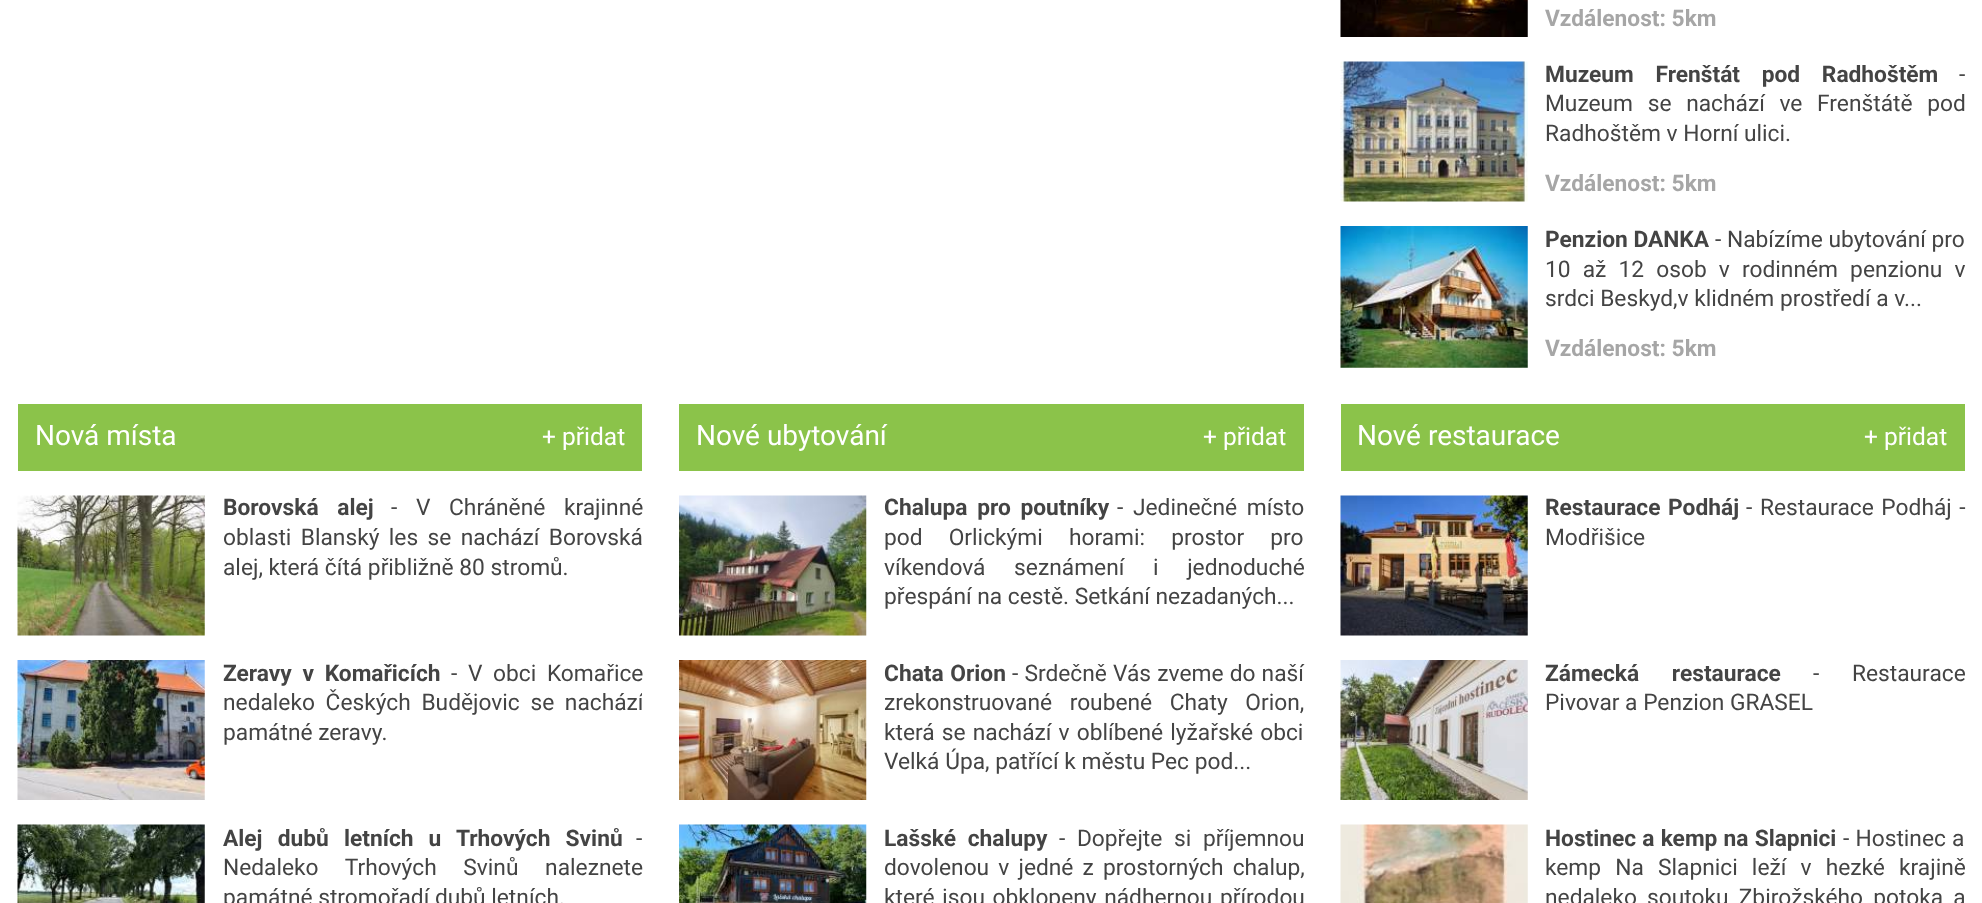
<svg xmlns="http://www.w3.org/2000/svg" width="1982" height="903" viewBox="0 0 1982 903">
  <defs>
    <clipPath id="clip1"><path d="M205 660h437v89H205z"/></clipPath>
  </defs>
  <rect width="100%" height="100%" fill="#fff"/>
  <image x="1340" y="0" width="188" height="37" href="img/1.png"/>
  <image x="1340" y="61" width="188" height="141" href="img/2.png"/>
  <image x="1340" y="226" width="188" height="142" href="img/3.png"/>
  <path d="M18 404h624v67H18z" fill="#8bc34a"/>
  <image x="17" y="495" width="188" height="141" href="img/4.png"/>
  <image x="17" y="660" width="188" height="140" href="img/5.png"/>
  <image x="17" y="824" width="188" height="79" href="img/6.png"/>
  <path d="M679 404h625v67H679z" fill="#8bc34a"/>
  <image x="679" y="495" width="188" height="141" href="img/7.png"/>
  <image x="679" y="660" width="188" height="140" href="img/8.png"/>
  <image x="679" y="824" width="188" height="79" href="img/9.png"/>
  <path d="M1341 404h624v67H1341z" fill="#8bc34a"/>
  <image x="1340" y="495" width="188" height="141" href="img/10.png"/>
  <image x="1340" y="660" width="188" height="140" href="img/11.png"/>
  <image x="1340" y="824" width="188" height="79" href="img/12.png"/>
  <text x="1545" y="26" font-family="Roboto" font-size="22.75" font-weight="bold" fill="#a6a6a6">Vzdálenost: 5km</text>
  <text x="1545" y="82" word-spacing="16" font-family="Roboto" font-size="22.75" font-weight="bold" fill="#444">Muzeum Frenštát pod Radhoštěm</text>
  <g font-family="Roboto" font-size="22.75" fill="#444">
    <text x="1959" y="82">-</text>
    <text x="1545" y="111" word-spacing="9">Muzeum se nachází ve Frenštátě pod</text>
    <text x="1545" y="141">Radhoštěm v Horní ulici.</text>
  </g>
  <text x="1545" y="191" font-family="Roboto" font-size="22.75" font-weight="bold" fill="#a6a6a6">Vzdálenost: 5km</text>
  <text x="1545" y="247" font-family="Roboto" font-size="22.75" font-weight="bold" fill="#444">Penzion DANKA</text>
  <g font-family="Roboto" font-size="22.75" fill="#444">
    <text x="1715" y="247">- Nabízíme ubytování pro</text>
    <text x="1545" y="277" word-spacing="6.5">10 až 12 osob v rodinném penzionu v</text>
    <text x="1545" y="306">srdci Beskyd,v klidném prostředí a v...</text>
  </g>
  <text x="1545" y="356" font-family="Roboto" font-size="22.75" font-weight="bold" fill="#a6a6a6">Vzdálenost: 5km</text>
  <text x="35" y="445" font-family="Roboto" font-size="28" fill="#fff">Nová místa</text>
  <text x="542" y="445" font-family="Roboto" font-size="24.5" fill="#fff">+ přidat</text>
  <text x="223" y="515" word-spacing="13" font-family="Roboto" font-size="22.75" font-weight="bold" fill="#444">Borovská alej</text>
  <g font-family="Roboto" font-size="22.75" fill="#444">
    <text x="391" y="515" word-spacing="13">- V Chráněné krajinné</text>
    <text x="223" y="545" word-spacing="3.75">oblasti Blanský les se nachází Borovská</text>
    <text x="223" y="575">alej, která čítá přibližně 80 stromů.</text>
  </g>
  <text x="223" y="681" word-spacing="5" font-family="Roboto" font-size="22.75" font-weight="bold" fill="#444">Zeravy v Komařicích</text>
  <text x="451" y="681" word-spacing="5" font-family="Roboto" font-size="22.75" fill="#444">- V obci Komařice</text>
  <g clip-path="url(#clip1)">
    <text x="223" y="710" word-spacing="5" font-family="Roboto" font-size="22.75" fill="#444">nedaleko Českých Budějovic se nachází</text>
  </g>
  <text x="223" y="740" font-family="Roboto" font-size="22.75" fill="#444">památné zeravy.</text>
  <text x="223" y="846" word-spacing="9.5" font-family="Roboto" font-size="22.75" font-weight="bold" fill="#444">Alej dubů letních u Trhových Svinů</text>
  <g font-family="Roboto" font-size="22.75" fill="#444">
    <text x="636" y="846">-</text>
    <text x="223" y="875" word-spacing="21">Nedaleko Trhových Svinů naleznete</text>
    <text x="223" y="905">památné stromořadí dubů letních.</text>
  </g>
  <text x="696" y="445" font-family="Roboto" font-size="28" fill="#fff">Nové ubytování</text>
  <text x="1203" y="445" font-family="Roboto" font-size="24.5" fill="#fff">+ přidat</text>
  <text x="884" y="515" word-spacing="4" font-family="Roboto" font-size="22.75" font-weight="bold" fill="#444">Chalupa pro poutníky</text>
  <g font-family="Roboto" font-size="22.75" fill="#444">
    <text x="1117" y="515" word-spacing="4">- Jedinečné místo</text>
    <text x="884" y="545" word-spacing="20.5">pod Orlickými horami: prostor pro</text>
    <text x="884" y="575" word-spacing="23">víkendová seznámení i jednoduché</text>
    <text x="884" y="604">přespání na cestě. Setkání nezadaných...</text>
  </g>
  <text x="884" y="681" word-spacing="1" font-family="Roboto" font-size="22.75" font-weight="bold" fill="#444">Chata Orion</text>
  <g font-family="Roboto" font-size="22.75" fill="#444">
    <text x="1012" y="681" word-spacing="0.5">- Srdečně Vás zveme do naší</text>
    <text x="884" y="710" word-spacing="12">zrekonstruované roubené Chaty Orion,</text>
    <text x="884" y="740" word-spacing="1.5">která se nachází v oblíbené lyžařské obci</text>
    <text x="884" y="769">Velká Úpa, patřící k městu Pec pod...</text>
  </g>
  <text x="884" y="846" word-spacing="6" font-family="Roboto" font-size="22.75" font-weight="bold" fill="#444">Lašské chalupy</text>
  <g font-family="Roboto" font-size="22.75" fill="#444">
    <text x="1059" y="846" word-spacing="6">- Dopřejte si příjemnou</text>
    <text x="884" y="875" word-spacing="3.5">dovolenou v jedné z prostorných chalup,</text>
    <text x="884" y="905" word-spacing="2">které jsou obklopeny nádhernou přírodou</text>
  </g>
  <text x="1357" y="445" font-family="Roboto" font-size="28" fill="#fff">Nové restaurace</text>
  <text x="1864" y="445" font-family="Roboto" font-size="24.5" fill="#fff">+ přidat</text>
  <text x="1545" y="515" word-spacing="2" font-family="Roboto" font-size="22.75" font-weight="bold" fill="#444">Restaurace Podháj</text>
  <g font-family="Roboto" font-size="22.75" fill="#444">
    <text x="1746" y="515" word-spacing="2">- Restaurace Podháj -</text>
    <text x="1545" y="545">Modřišice</text>
  </g>
  <text x="1545" y="681" word-spacing="27" font-family="Roboto" font-size="22.75" font-weight="bold" fill="#444">Zámecká restaurace</text>
  <g font-family="Roboto" font-size="22.75" fill="#444">
    <text x="1813" y="681" word-spacing="27">- Restaurace</text>
    <text x="1545" y="710">Pivovar a Penzion GRASEL</text>
  </g>
  <text x="1545" y="846" word-spacing="0.5" font-family="Roboto" font-size="22.75" font-weight="bold" fill="#444">Hostinec a kemp na Slapnici</text>
  <g font-family="Roboto" font-size="22.75" fill="#444">
    <text x="1843" y="846" word-spacing="0.5">- Hostinec a</text>
    <text x="1545" y="875" word-spacing="8.5">kemp Na Slapnici leží v hezké krajině</text>
    <text x="1545" y="905" word-spacing="4.5">nedaleko soutoku Zbirožského potoka a</text>
  </g>
</svg>
